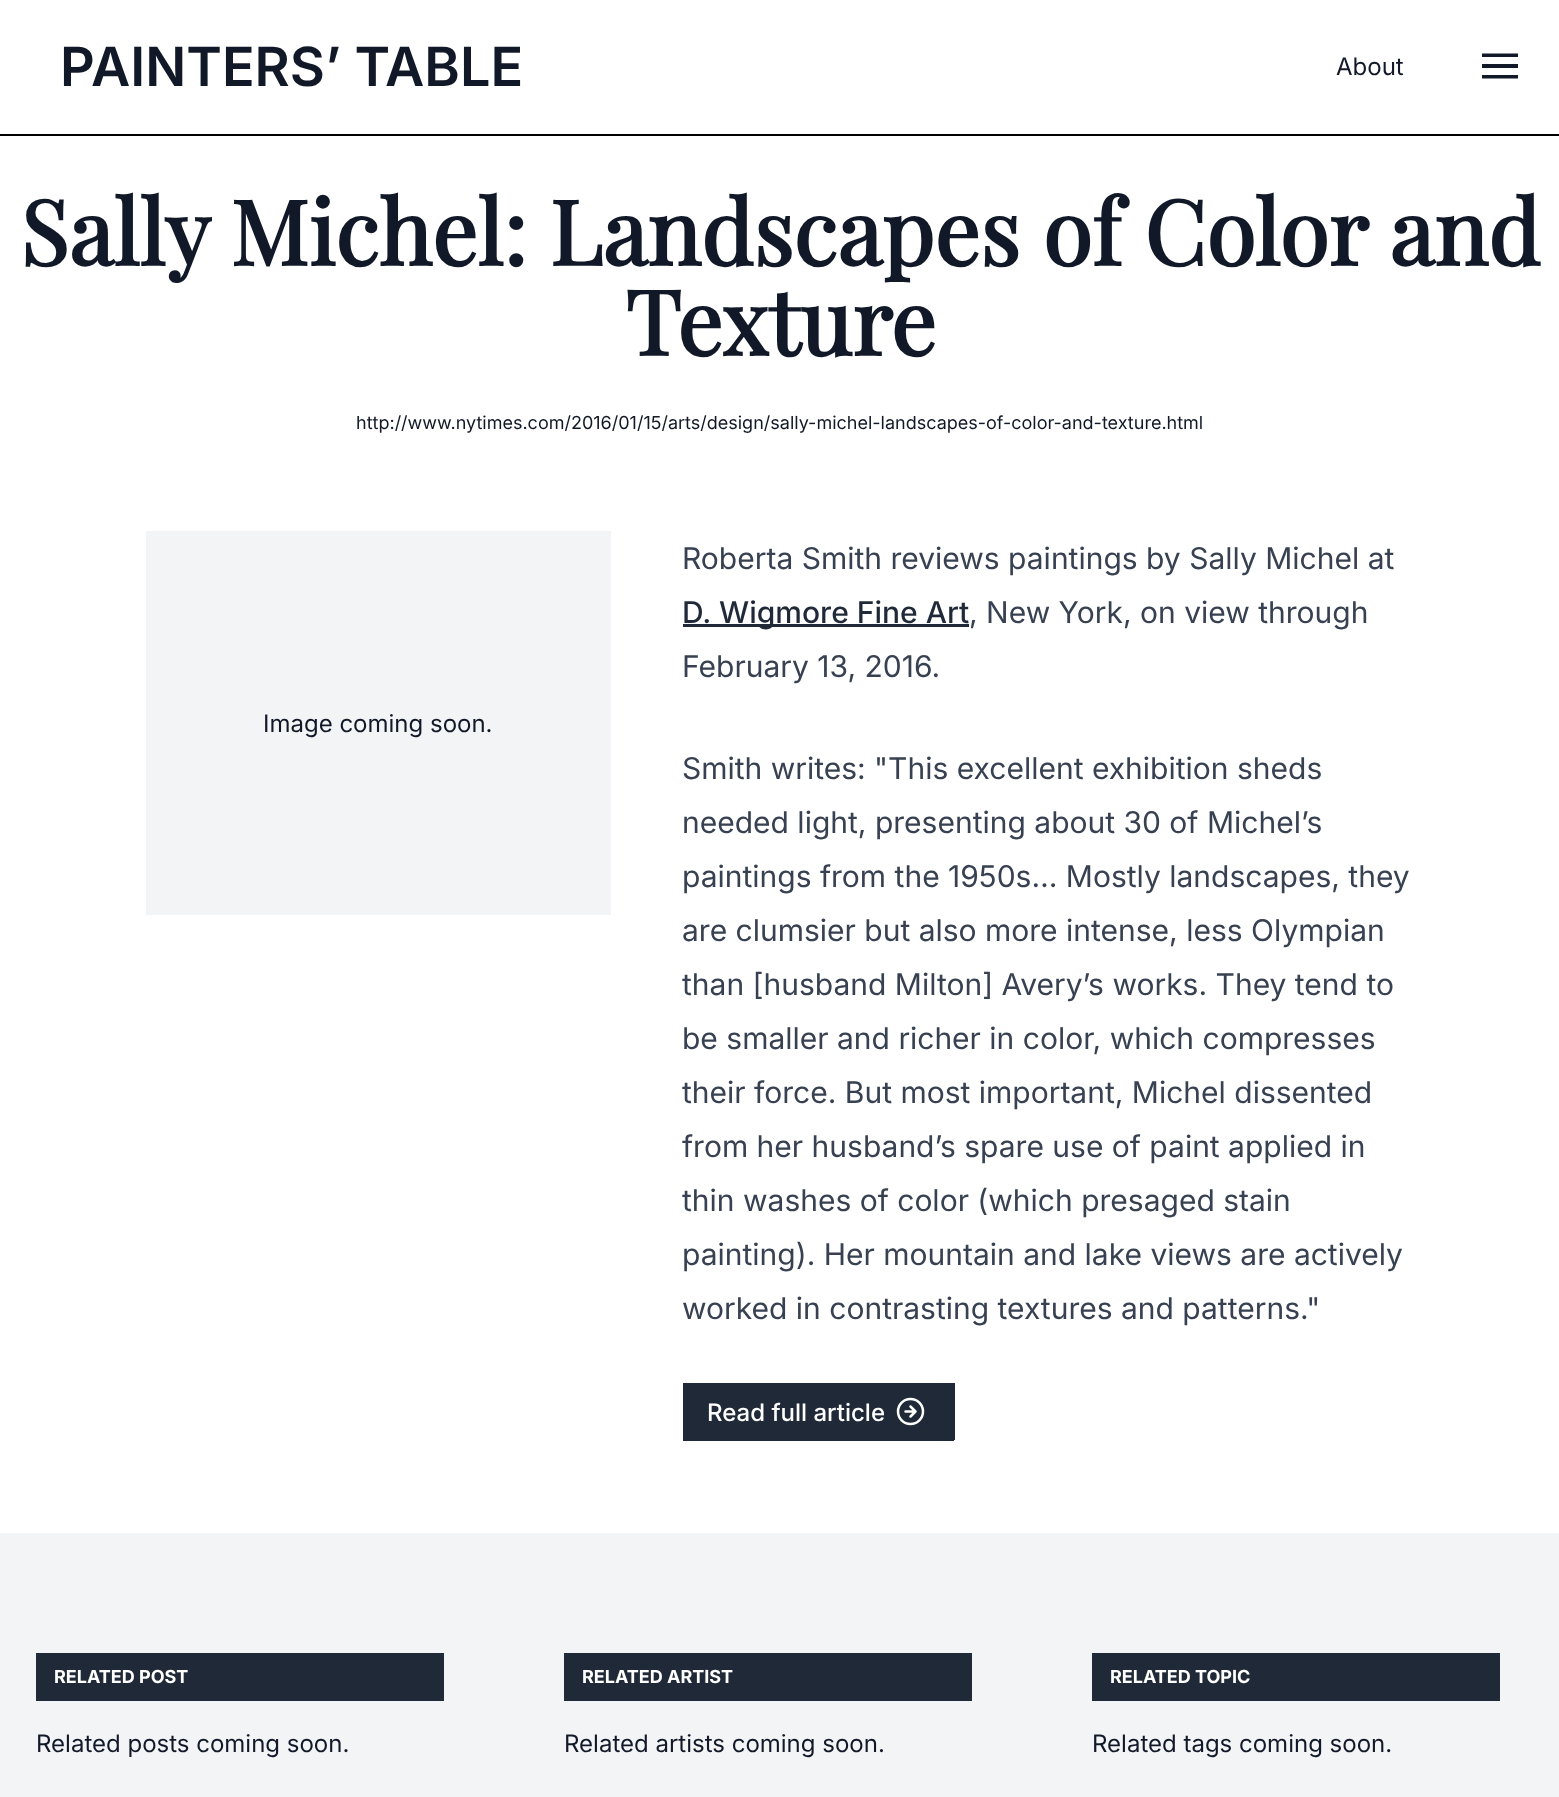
<svg xmlns="http://www.w3.org/2000/svg" width="1559" height="1797" viewBox="0 0 1559 1797">
  <rect width="100%" height="100%" fill="#fff"/>
  <path d="M0 134h1559v2H0z" fill="#000"/>
  <path d="M1482 53.5H1518V57H1482ZM1482 64H1518V68H1482ZM1482 75H1518V78.5H1482Z" fill="#111827" fill-rule="evenodd"/>
  <path d="M146 531h465v384H146z" fill="#f3f4f6"/>
  <path d="M683 624h286v3H683z" fill="#1f2937"/>
  <path d="M683 1383h210v58H683z" fill="#1f2937"/>
  <path d="M893 1383h60v56H893z" fill="#1f2937"/>
  <path d="M953 1383h2v57H953z" fill="#1f2937"/>
  <path d="M893 1439h61v2H893z" fill="#1f2937"/>
  <circle cx="910.5" cy="1411.5" r="12.5" fill="none" stroke="#fff" stroke-width="2.5"/>
  <path d="M910.5 1416.5L915.5 1411.5L910.5 1406.5M905.5 1411.5H915.5" fill="none" stroke="#fff" stroke-width="2.5" stroke-linecap="round" stroke-linejoin="round"/>
  <path d="M0 1533h1559v264H0z" fill="#f3f4f6"/>
  <path d="M36 1653h408v48H36z" fill="#1f2937"/>
  <path d="M564 1653h408v48H564z" fill="#1f2937"/>
  <path d="M1092 1653h408v48H1092z" fill="#1f2937"/>
  <g font-family="Inter" font-size="54" font-weight="600" fill="#111827">
    <text x="60" y="86">P</text>
    <text x="91" y="86">AINTERS’ T</text>
    <text x="385" y="86">ABLE</text>
  </g>
  <text x="1336" y="75" font-family="Inter" font-size="24" fill="#111827">About</text>
  <g font-family="Playfair Display" font-size="90" font-weight="bold" fill="#111827">
    <text x="20" y="266">Sally Michel: Landscapes of Color and</text>
    <text x="625" y="356">Texture</text>
  </g>
  <text x="356" y="429" font-family="Inter" font-size="18" fill="#111827">http://www.nytimes.com/2016/01/15/arts/design/sally-michel-landscapes-of-color-and-texture.html</text>
  <text x="263" y="732" font-family="Inter" font-size="24" fill="#111827">Image coming soon.</text>
  <text x="682" y="569" font-family="Inter" font-size="30" fill="#374151">Roberta Smith reviews paintings by Sally Michel at</text>
  <text x="682" y="623" font-family="Inter" font-size="30" font-weight="500" fill="#1f2937">D. Wigmore Fine Art</text>
  <g font-family="Inter" font-size="30" fill="#374151">
    <text x="969" y="623">, New York, on view through</text>
    <text x="682" y="677">February 13, 2016.</text>
    <text x="682" y="779">Smith writes: "This excellent exhibition sheds</text>
    <text x="682" y="833">needed light, presenting about 30 of Michel’s</text>
    <text x="682" y="887">paintings from the 1950s… Mostly landscapes, they</text>
    <text x="682" y="941">are clumsier but also more intense, less Olympian</text>
    <text x="682" y="995">than [husband Milton] Avery’s works. They tend to</text>
    <text x="682" y="1049">be smaller and richer in color, which compresses</text>
    <text x="682" y="1103">their force. But most important, Michel dissented</text>
    <text x="682" y="1157">from her husband’s spare use of paint applied in</text>
    <text x="682" y="1211">thin washes of color (which presaged stain</text>
    <text x="682" y="1265">painting). Her mountain and lake views are actively</text>
    <text x="682" y="1319">worked in contrasting textures and patterns."</text>
  </g>
  <text x="707" y="1421" font-family="Inter" font-size="24" font-weight="500" fill="#fff">Read full article</text>
  <text x="54" y="1683" font-family="Inter" font-size="18" font-weight="bold" fill="#fff">RELATED POST</text>
  <text x="36" y="1752" font-family="Inter" font-size="24" fill="#111827">Related posts coming soon.</text>
  <text x="582" y="1683" font-family="Inter" font-size="18" font-weight="bold" fill="#fff">RELATED ARTIST</text>
  <text x="564" y="1752" font-family="Inter" font-size="24" fill="#111827">Related artists coming soon.</text>
  <text x="1110" y="1683" font-family="Inter" font-size="18" font-weight="bold" fill="#fff">RELATED TOPIC</text>
  <text x="1092" y="1752" font-family="Inter" font-size="24" fill="#111827">Related tags coming soon.</text>
</svg>
